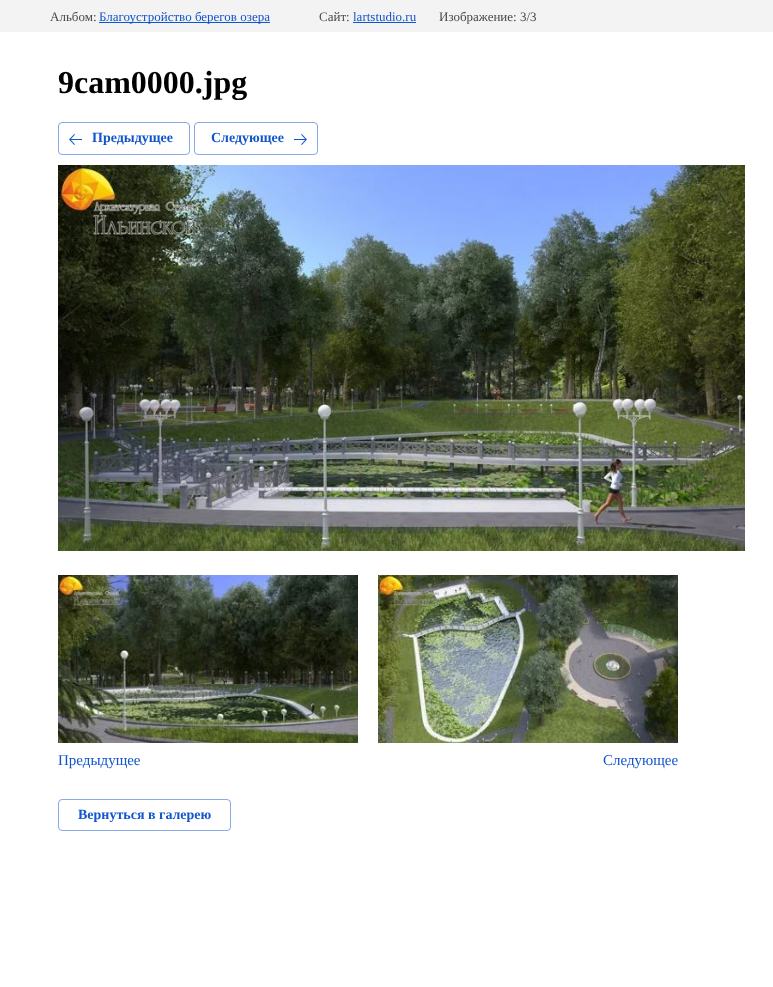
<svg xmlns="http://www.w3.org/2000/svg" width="773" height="987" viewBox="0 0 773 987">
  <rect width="100%" height="100%" fill="#fff"/>
  <path d="M0 0h773v32H0z" fill="#f3f3f3"/>
  <path d="M99 22h171v1H99z" fill="#15c"/>
  <path d="M353 22h63v1H353z" fill="#15c"/>
  <rect x="58.5" y="122.5" width="131" height="32" rx="3.5" fill="none" stroke="#88aae6"/>
  <image x="69" y="134" width="13" height="11" href="img/1.png"/>
  <rect x="194.5" y="122.5" width="123" height="32" rx="3.5" fill="none" stroke="#88aae6"/>
  <image x="294" y="134" width="13" height="11" href="img/2.png"/>
  <image x="58" y="165" width="687" height="386" href="img/3.png"/>
  <image x="58" y="575" width="300" height="168" href="img/4.png"/>
  <image x="378" y="575" width="300" height="168" href="img/5.png"/>
  <rect x="58.5" y="799.5" width="172" height="31" rx="3.5" fill="none" stroke="#88aae6"/>
  <text x="50" y="21" font-family="Liberation Serif" font-size="13" fill="#484848">Альбом:</text>
  <text x="99" y="21" font-family="Liberation Serif" font-size="13" fill="#15c">Благоустройство берегов озера</text>
  <text x="319" y="21" font-family="Liberation Serif" font-size="13" fill="#484848">Сайт:</text>
  <text x="353" y="21" font-family="Liberation Serif" font-size="13" fill="#15c">lartstudio.ru</text>
  <text x="439" y="21" font-family="Liberation Serif" font-size="13" fill="#484848">Изображение: 3/3</text>
  <text x="58" y="93" font-family="Liberation Serif" font-size="32" font-weight="bold" fill="#000">9cam0000.jpg</text>
  <g font-family="Liberation Serif" font-size="14" font-weight="bold" fill="#15c">
    <text x="92" y="142">Предыдущее</text>
    <text x="211" y="142">Следующее</text>
  </g>
  <g font-family="Liberation Serif" font-size="15" fill="#15c">
    <text x="58" y="765">Предыдущее</text>
    <text x="603" y="765">Следующее</text>
  </g>
  <text x="78" y="819" font-family="Liberation Serif" font-size="14" font-weight="bold" fill="#15c">Вернуться в галерею</text>
</svg>
